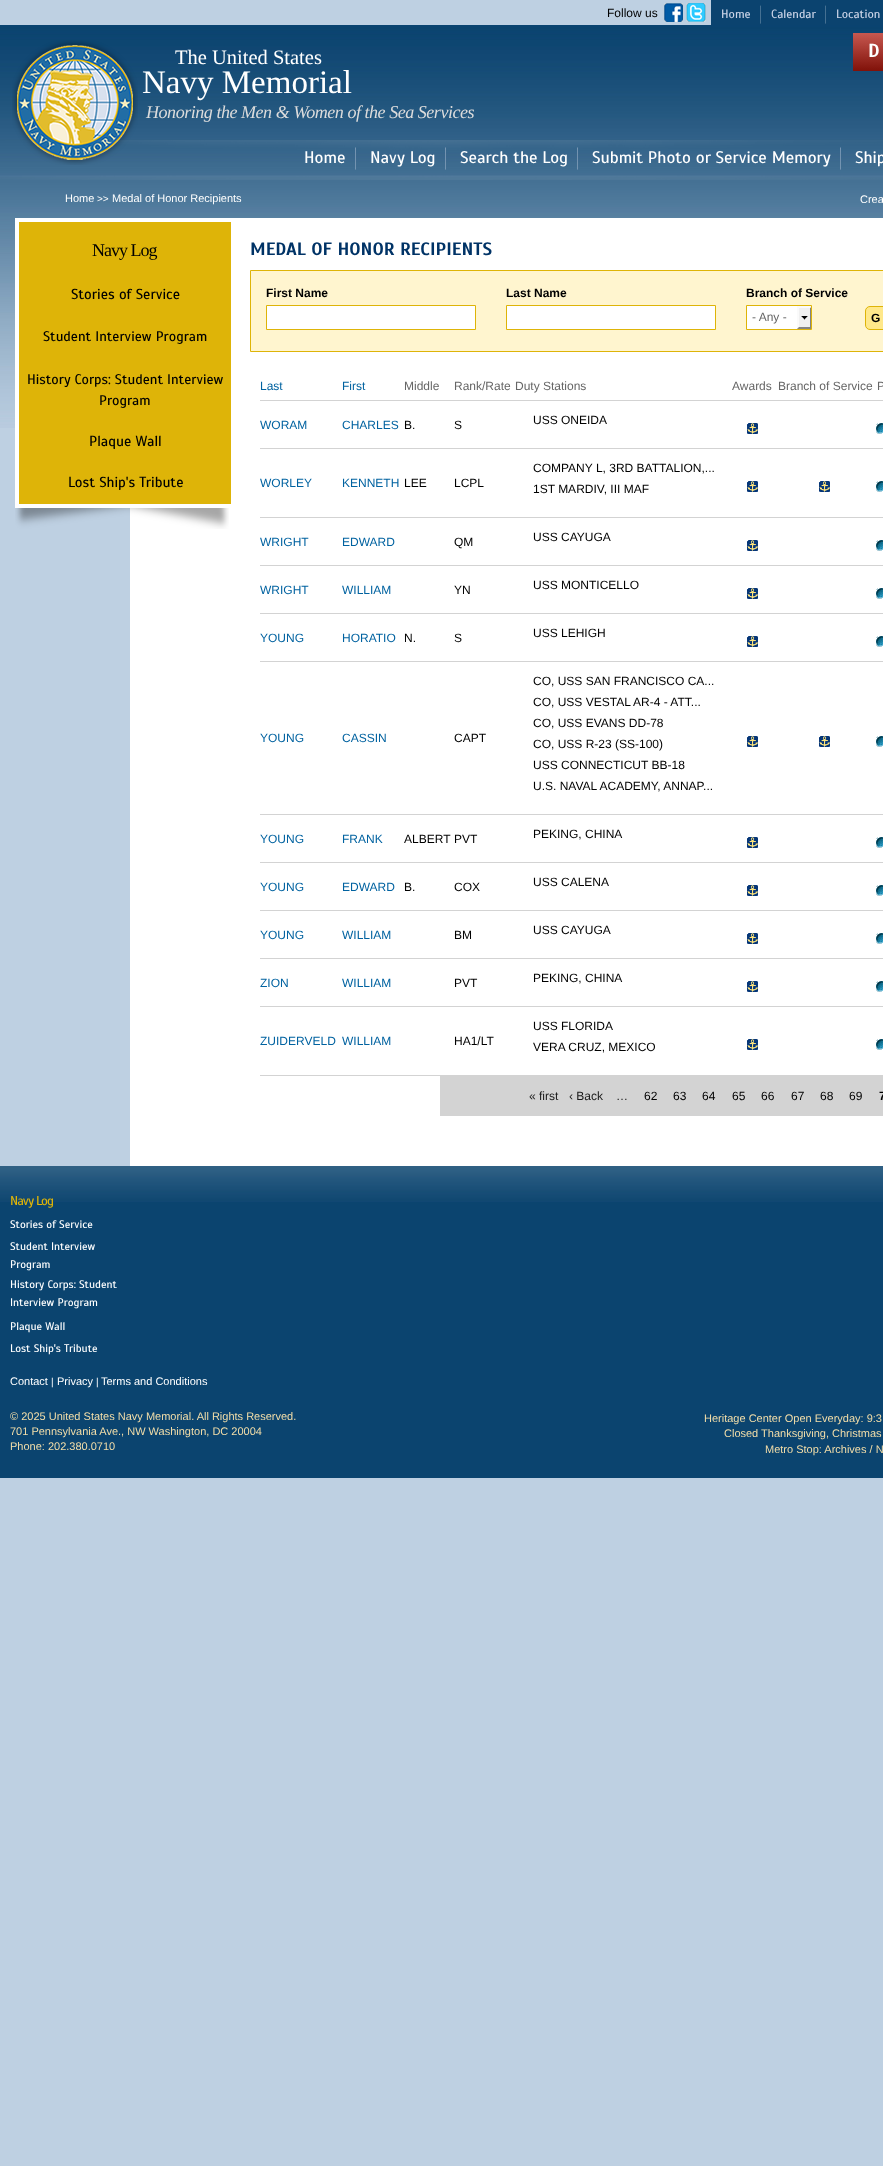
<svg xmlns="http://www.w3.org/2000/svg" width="883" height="2166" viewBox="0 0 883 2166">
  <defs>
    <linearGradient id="g1" gradientUnits="userSpaceOnUse" x1="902" y1="33" x2="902" y2="71"><stop offset="0" stop-color="#c75850"/><stop offset="1" stop-color="#801109"/></linearGradient>
  </defs>
  <rect width="100%" height="100%" fill="#bed0e2"/>
  <image x="0" y="25" width="883" height="403" href="img/1.png"/>
  <image x="664" y="3" width="19" height="19" href="img/2.png"/>
  <image x="686" y="3" width="20" height="19" href="img/3.png"/>
  <path d="M711 0h172v25H711z" fill="#0b436f"/>
  <image x="760" y="5" width="1" height="19" href="img/4.png"/>
  <image x="825" y="5" width="1" height="19" href="img/4.png"/>
  <image x="12" y="40" width="126" height="125" href="img/5.png"/>
  <path d="M853 33h30v38H853z" fill="url(#g1)"/>
  <image x="0" y="140" width="883" height="40" href="img/6.png"/>
  <image x="355" y="147" width="1" height="23" href="img/7.png"/>
  <image x="445" y="147" width="1" height="23" href="img/8.png"/>
  <image x="577" y="147" width="1" height="23" href="img/7.png"/>
  <image x="840" y="147" width="1" height="23" href="img/9.png"/>
  <path d="M130 218h753v948H130z" fill="#fff"/>
  <image x="15" y="508" width="214" height="21" href="img/10.png"/>
  <path d="M17 220h216v286H17z" fill="#deb408" stroke="#fff" stroke-width="4"/>
  <path d="M250.5 270.5h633v81H250.5z" fill="#fff5cf" stroke="#deb408"/>
  <path d="M266.5 305.5h209v24H266.5z" fill="#fff" stroke="#deb408"/>
  <path d="M506.5 305.5h209v24H506.5z" fill="#fff" stroke="#deb408"/>
  <path d="M747 306h50v23H747z" fill="#fff"/>
  <image x="797" y="306" width="14" height="23" href="img/11.png"/>
  <path d="M746.5 305.5h65v24H746.5z" fill="none" stroke="#deb408"/>
  <rect x="865.5" y="306.5" width="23" height="23" rx="4.5" fill="#ffe88a" stroke="#deb408"/>
  <path d="M260 400h623v1H260z" fill="#d3d3d3"/>
  <path d="M260 448h623v1H260z" fill="#d3d3d3"/>
  <image x="747" y="423" width="11" height="11" href="img/12.png"/>
  <image x="876" y="423" width="7" height="11" href="img/13.png"/>
  <path d="M260 517h623v1H260z" fill="#d3d3d3"/>
  <image x="747" y="481" width="11" height="11" href="img/12.png"/>
  <image x="819" y="481" width="11" height="11" href="img/12.png"/>
  <image x="876" y="481" width="7" height="11" href="img/13.png"/>
  <path d="M260 565h623v1H260z" fill="#d3d3d3"/>
  <image x="747" y="540" width="11" height="11" href="img/12.png"/>
  <image x="876" y="540" width="7" height="11" href="img/13.png"/>
  <path d="M260 613h623v1H260z" fill="#d3d3d3"/>
  <image x="747" y="588" width="11" height="11" href="img/12.png"/>
  <image x="876" y="588" width="7" height="11" href="img/13.png"/>
  <path d="M260 661h623v1H260z" fill="#d3d3d3"/>
  <image x="747" y="636" width="11" height="11" href="img/12.png"/>
  <image x="876" y="636" width="7" height="11" href="img/13.png"/>
  <path d="M260 814h623v1H260z" fill="#d3d3d3"/>
  <image x="747" y="736" width="11" height="11" href="img/12.png"/>
  <image x="819" y="736" width="11" height="11" href="img/12.png"/>
  <image x="876" y="736" width="7" height="11" href="img/13.png"/>
  <path d="M260 862h623v1H260z" fill="#d3d3d3"/>
  <image x="747" y="837" width="11" height="11" href="img/12.png"/>
  <image x="876" y="837" width="7" height="11" href="img/13.png"/>
  <path d="M260 910h623v1H260z" fill="#d3d3d3"/>
  <image x="747" y="885" width="11" height="11" href="img/12.png"/>
  <image x="876" y="885" width="7" height="11" href="img/13.png"/>
  <path d="M260 958h623v1H260z" fill="#d3d3d3"/>
  <image x="747" y="933" width="11" height="11" href="img/12.png"/>
  <image x="876" y="933" width="7" height="11" href="img/13.png"/>
  <path d="M260 1006h623v1H260z" fill="#d3d3d3"/>
  <image x="747" y="981" width="11" height="11" href="img/12.png"/>
  <image x="876" y="981" width="7" height="11" href="img/13.png"/>
  <path d="M260 1075h623v1H260z" fill="#d3d3d3"/>
  <image x="747" y="1039" width="11" height="11" href="img/12.png"/>
  <image x="876" y="1039" width="7" height="11" href="img/13.png"/>
  <path d="M440 1076h443v40H440z" fill="#d3d3d3"/>
  <path d="M0 1202h883v276H0z" fill="#0b446f"/>
  <image x="0" y="1166" width="883" height="36" href="img/14.png"/>
  <text x="607" y="17" font-family="Liberation Sans" font-size="12" fill="#000">Follow us</text>
  <g font-family="Scada" font-size="12" fill="#ccd5e8">
    <text x="721" y="18">Home</text>
    <text x="771" y="18">Calendar</text>
    <text x="836" y="18">Location</text>
  </g>
  <text x="175" y="64" font-family="Liberation Serif" font-size="20.5" fill="#fff">The United States</text>
  <text x="142" y="93" font-family="Liberation Serif" font-size="33" fill="#fff">Navy Memorial</text>
  <text x="146" y="118" font-family="Liberation Serif" font-size="18.1" font-style="italic" letter-spacing="-0.5" fill="#dcdcdc">Honoring the Men &amp; Women of the Sea Services</text>
  <text x="868" y="57" font-family="Scada" font-size="19" font-weight="bold" fill="#fff">D</text>
  <g font-family="Scada" font-size="16.75" fill="#fff">
    <text x="304" y="163">Home</text>
    <text x="370" y="163">Navy Log</text>
    <text x="460" y="163">Search the Log</text>
    <text x="592" y="163">Submit Photo or Service Memory</text>
    <text x="855" y="163">Ship</text>
  </g>
  <text x="65" y="202" font-family="Liberation Sans" font-size="11" fill="#fff">Home</text>
  <text x="97" y="202" font-family="Liberation Sans" font-size="10" fill="#fff">&gt;&gt;</text>
  <g font-family="Liberation Sans" font-size="11" fill="#fff">
    <text x="112" y="202">Medal of Honor Recipients</text>
    <text x="860" y="203">Crea</text>
  </g>
  <text x="92" y="256" font-family="Liberation Serif" font-size="18" letter-spacing="-1" fill="#000">Navy Log</text>
  <text x="71" y="299" font-family="Scada" font-size="14.5" fill="#000">Stories of Service</text>
  <g font-family="Scada" font-size="14" fill="#000">
    <text x="43" y="341">Student Interview Program</text>
    <text x="27" y="384">History Corps: Student Interview</text>
    <text x="99" y="405">Program</text>
  </g>
  <g font-family="Scada" font-size="14.5" fill="#000">
    <text x="89" y="446">Plaque Wall</text>
    <text x="68" y="487">Lost Ship's Tribute</text>
  </g>
  <text x="250" y="255" font-family="Scada" font-size="18" font-weight="bold" fill="#036">MEDAL OF HONOR RECIPIENTS</text>
  <g font-family="Liberation Sans" font-size="12" font-weight="bold" fill="#000">
    <text x="266" y="297">First Name</text>
    <text x="506" y="297">Last Name</text>
    <text x="746" y="297">Branch of Service</text>
  </g>
  <text x="752" y="321" font-family="Liberation Sans" font-size="12" fill="#666">- Any -</text>
  <text x="871" y="322" font-family="Liberation Sans" font-size="12" font-weight="bold" fill="#000">G</text>
  <g font-family="Liberation Sans" font-size="12" fill="#0062a0">
    <text x="260" y="390">Last</text>
    <text x="342" y="390">First</text>
  </g>
  <g font-family="Liberation Sans" font-size="12" fill="#666">
    <text x="404" y="390">Middle</text>
    <text x="454" y="390">Rank/Rate</text>
    <text x="515" y="390">Duty Stations</text>
    <text x="732" y="390">Awards</text>
    <text x="778" y="390">Branch of Service</text>
    <text x="877" y="390">P</text>
  </g>
  <g font-family="Liberation Sans" font-size="12" fill="#0062a0">
    <text x="260" y="429">WORAM</text>
    <text x="342" y="429">CHARLES</text>
  </g>
  <g font-family="Liberation Sans" font-size="12" fill="#000">
    <text x="404" y="429">B.</text>
    <text x="454" y="429">S</text>
    <text x="533" y="424">USS ONEIDA</text>
  </g>
  <g font-family="Liberation Sans" font-size="12" fill="#0062a0">
    <text x="260" y="487">WORLEY</text>
    <text x="342" y="487">KENNETH</text>
  </g>
  <g font-family="Liberation Sans" font-size="12" fill="#000">
    <text x="404" y="487">LEE</text>
    <text x="454" y="487">LCPL</text>
    <text x="533" y="472">COMPANY L, 3RD BATTALION,...</text>
    <text x="533" y="493">1ST MARDIV, III MAF</text>
  </g>
  <g font-family="Liberation Sans" font-size="12" fill="#0062a0">
    <text x="260" y="546">WRIGHT</text>
    <text x="342" y="546">EDWARD</text>
  </g>
  <g font-family="Liberation Sans" font-size="12" fill="#000">
    <text x="454" y="546">QM</text>
    <text x="533" y="541">USS CAYUGA</text>
  </g>
  <g font-family="Liberation Sans" font-size="12" fill="#0062a0">
    <text x="260" y="594">WRIGHT</text>
    <text x="342" y="594">WILLIAM</text>
  </g>
  <g font-family="Liberation Sans" font-size="12" fill="#000">
    <text x="454" y="594">YN</text>
    <text x="533" y="589">USS MONTICELLO</text>
  </g>
  <g font-family="Liberation Sans" font-size="12" fill="#0062a0">
    <text x="260" y="642">YOUNG</text>
    <text x="342" y="642">HORATIO</text>
  </g>
  <g font-family="Liberation Sans" font-size="12" fill="#000">
    <text x="404" y="642">N.</text>
    <text x="454" y="642">S</text>
    <text x="533" y="637">USS LEHIGH</text>
  </g>
  <g font-family="Liberation Sans" font-size="12" fill="#0062a0">
    <text x="260" y="742">YOUNG</text>
    <text x="342" y="742">CASSIN</text>
  </g>
  <g font-family="Liberation Sans" font-size="12" fill="#000">
    <text x="454" y="742">CAPT</text>
    <text x="533" y="685">CO, USS SAN FRANCISCO CA...</text>
    <text x="533" y="706">CO, USS VESTAL AR-4 - ATT...</text>
    <text x="533" y="727">CO, USS EVANS DD-78</text>
    <text x="533" y="748">CO, USS R-23 (SS-100)</text>
    <text x="533" y="769">USS CONNECTICUT BB-18</text>
    <text x="533" y="790">U.S. NAVAL ACADEMY, ANNAP...</text>
  </g>
  <g font-family="Liberation Sans" font-size="12" fill="#0062a0">
    <text x="260" y="843">YOUNG</text>
    <text x="342" y="843">FRANK</text>
  </g>
  <g font-family="Liberation Sans" font-size="12" fill="#000">
    <text x="404" y="843">ALBERT</text>
    <text x="454" y="843">PVT</text>
    <text x="533" y="838">PEKING, CHINA</text>
  </g>
  <g font-family="Liberation Sans" font-size="12" fill="#0062a0">
    <text x="260" y="891">YOUNG</text>
    <text x="342" y="891">EDWARD</text>
  </g>
  <g font-family="Liberation Sans" font-size="12" fill="#000">
    <text x="404" y="891">B.</text>
    <text x="454" y="891">COX</text>
    <text x="533" y="886">USS CALENA</text>
  </g>
  <g font-family="Liberation Sans" font-size="12" fill="#0062a0">
    <text x="260" y="939">YOUNG</text>
    <text x="342" y="939">WILLIAM</text>
  </g>
  <g font-family="Liberation Sans" font-size="12" fill="#000">
    <text x="454" y="939">BM</text>
    <text x="533" y="934">USS CAYUGA</text>
  </g>
  <g font-family="Liberation Sans" font-size="12" fill="#0062a0">
    <text x="260" y="987">ZION</text>
    <text x="342" y="987">WILLIAM</text>
  </g>
  <g font-family="Liberation Sans" font-size="12" fill="#000">
    <text x="454" y="987">PVT</text>
    <text x="533" y="982">PEKING, CHINA</text>
  </g>
  <g font-family="Liberation Sans" font-size="12" fill="#0062a0">
    <text x="260" y="1045">ZUIDERVELD</text>
    <text x="342" y="1045">WILLIAM</text>
  </g>
  <g font-family="Liberation Sans" font-size="12" fill="#000">
    <text x="454" y="1045">HA1/LT</text>
    <text x="533" y="1030">USS FLORIDA</text>
    <text x="533" y="1051">VERA CRUZ, MEXICO</text>
  </g>
  <g font-family="Liberation Sans" font-size="12" fill="#1a1a1a">
    <text x="529" y="1100">« first</text>
    <text x="569" y="1100">‹ Back</text>
    <text x="616" y="1100">…</text>
  </g>
  <g font-family="Liberation Sans" font-size="12" fill="#000">
    <text x="644" y="1100">62</text>
    <text x="673" y="1100">63</text>
    <text x="702" y="1100">64</text>
    <text x="732" y="1100">65</text>
    <text x="761" y="1100">66</text>
    <text x="791" y="1100">67</text>
    <text x="820" y="1100">68</text>
    <text x="849" y="1100">69</text>
  </g>
  <text x="879" y="1100" font-family="Liberation Sans" font-size="12" font-weight="bold" fill="#000">7</text>
  <text x="10" y="1205" font-family="Scada" font-size="13" letter-spacing="-1" fill="#deb408">Navy Log</text>
  <g font-family="Scada" font-size="11" fill="#fff">
    <text x="10" y="1228">Stories of Service</text>
    <text x="10" y="1250">Student Interview</text>
    <text x="10" y="1268">Program</text>
    <text x="10" y="1288">History Corps: Student</text>
    <text x="10" y="1306">Interview Program</text>
    <text x="10" y="1330">Plaque Wall</text>
    <text x="10" y="1352">Lost Ship's Tribute</text>
  </g>
  <text x="10" y="1385" font-family="Liberation Sans" font-size="11" fill="#fff">Contact</text>
  <text x="51" y="1385" font-family="Liberation Sans" font-size="10" fill="#fff">|</text>
  <text x="57" y="1385" font-family="Liberation Sans" font-size="11" fill="#fff">Privacy</text>
  <text x="96" y="1385" font-family="Liberation Sans" font-size="10" fill="#fff">|</text>
  <text x="101" y="1385" font-family="Liberation Sans" font-size="11" fill="#fff">Terms and Conditions</text>
  <g font-family="Liberation Sans" font-size="11" fill="#f3dea9">
    <text x="10" y="1420">© 2025 United States Navy Memorial. All Rights Reserved.</text>
    <text x="10" y="1435">701 Pennsylvania Ave., NW Washington, DC 20004</text>
    <text x="10" y="1450">Phone: 202.380.0710</text>
    <text x="704" y="1422">Heritage Center Open Everyday: 9:3</text>
    <text x="724" y="1437">Closed Thanksgiving, Christmas</text>
    <text x="765" y="1453">Metro Stop: Archives / N</text>
  </g>
</svg>
